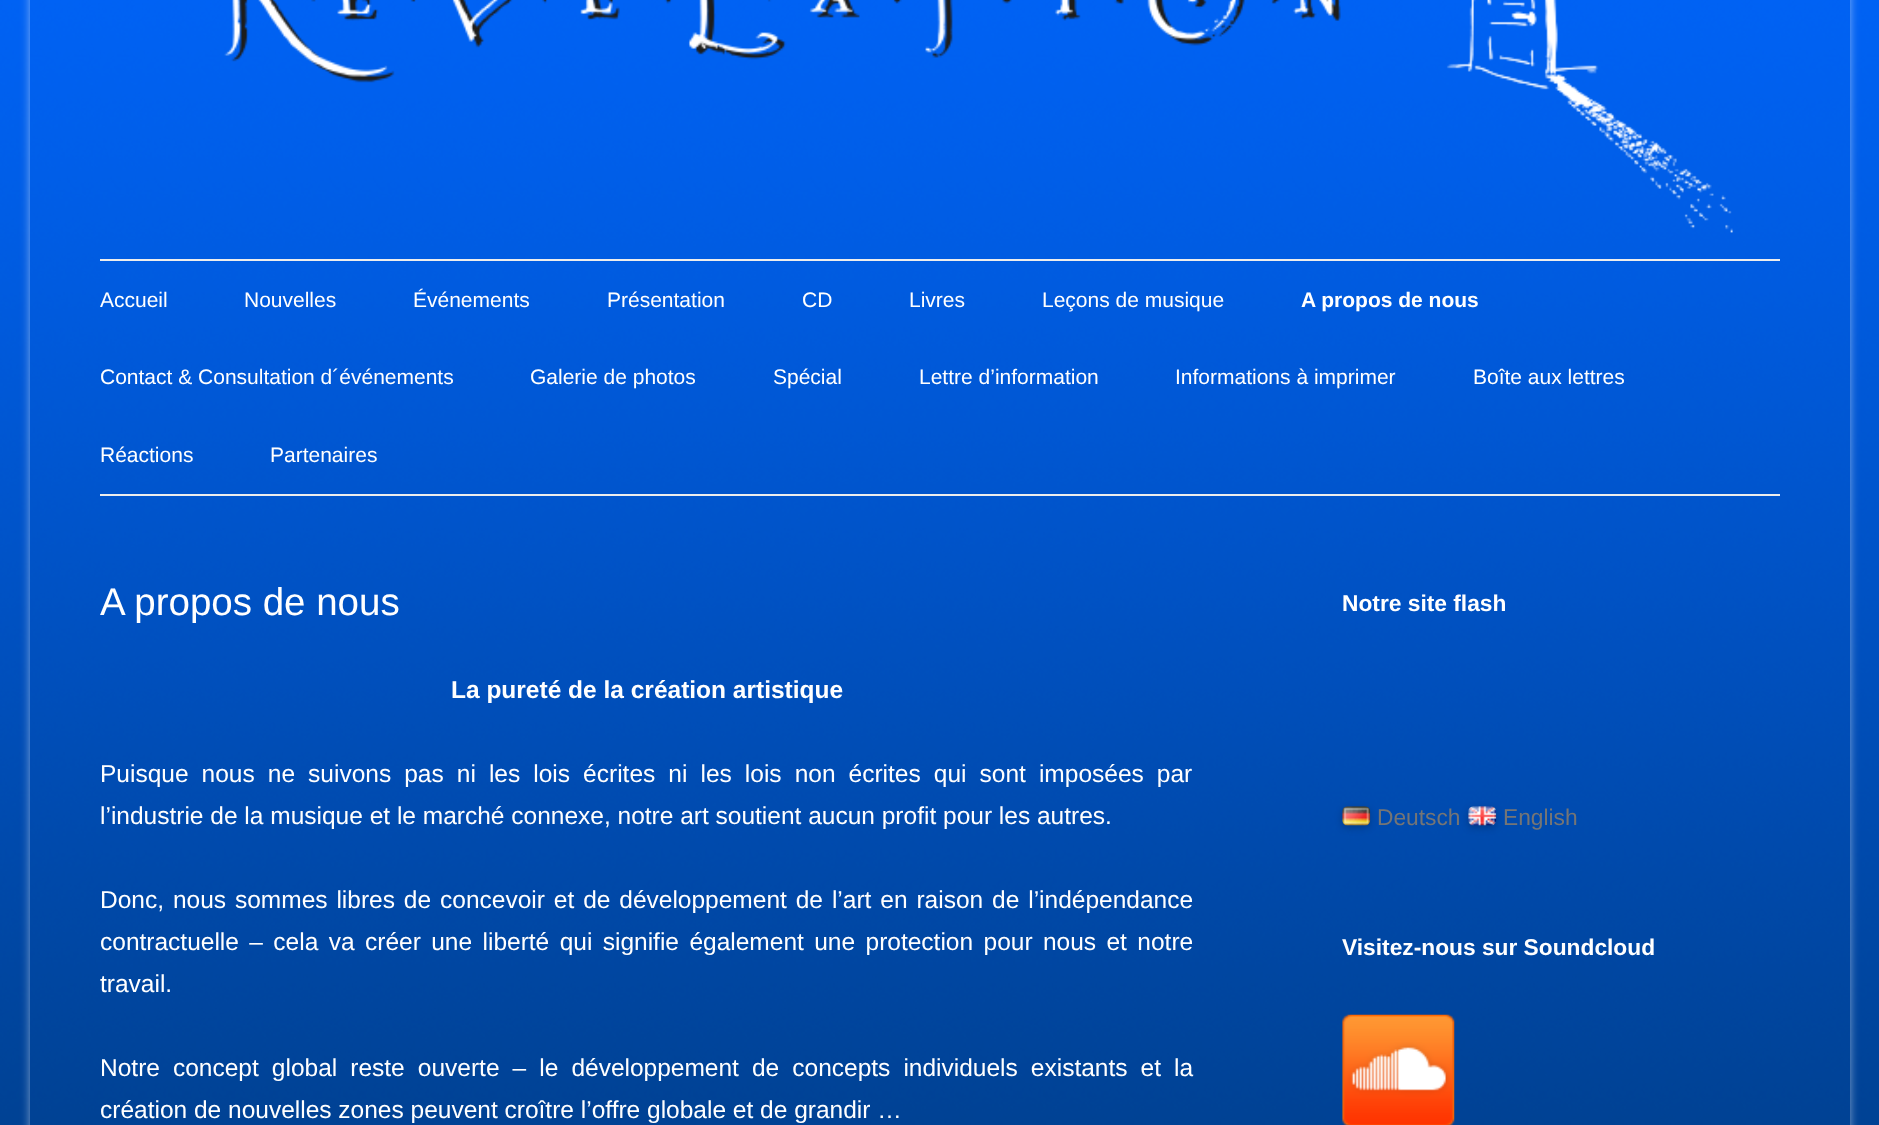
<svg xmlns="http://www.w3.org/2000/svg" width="1879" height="1125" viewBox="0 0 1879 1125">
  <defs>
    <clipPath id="clip1"><path d="M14 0H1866V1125H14ZM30-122H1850V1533H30Z" clip-rule="evenodd"/></clipPath>
  </defs>
  <rect width="100%" height="100%" fill="#fff"/>
  <image x="0" y="0" width="1879" height="1125" href="img/1.png"/>
  <g clip-path="url(#clip1)">
    <path d="M30 -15h1820v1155H30z" fill="#ffffff80" filter="blur(5px)"/>
  </g>
  <image x="224" y="0" width="1509" height="233" href="img/2.png"/>
  <path d="M100 259h1680v2H100z" fill="#ededed"/>
  <path d="M100 494h1680v2H100z" fill="#ededed"/>
  <rect x="1342" y="809" width="28" height="19" rx="5" fill="#00000033" filter="blur(3.5px)"/>
  <image x="1342" y="806" width="29" height="20" href="img/3.png"/>
  <rect x="1468" y="809" width="28" height="19" rx="5" fill="#00000033" filter="blur(3.5px)"/>
  <image x="1468" y="806" width="29" height="20" href="img/4.png"/>
  <image x="1342" y="1014" width="113" height="111" href="img/5.png"/>
  <g font-family="Liberation Sans" font-size="21" fill="#fff">
    <text x="100" y="307">Accueil</text>
    <text x="244" y="307">Nouvelles</text>
    <text x="413" y="307">Événements</text>
    <text x="607" y="307">Présentation</text>
    <text x="802" y="307">CD</text>
    <text x="909" y="307">Livres</text>
    <text x="1042" y="307">Leçons de musique</text>
  </g>
  <text x="1301" y="307" font-family="Liberation Sans" font-size="21" font-weight="bold" fill="#fff">A propos de nous</text>
  <g font-family="Liberation Sans" font-size="21" fill="#fff">
    <text x="100" y="384">Contact &amp; Consultation d´événements</text>
    <text x="530" y="384">Galerie de photos</text>
    <text x="773" y="384">Spécial</text>
    <text x="919" y="384">Lettre d’information</text>
    <text x="1175" y="384">Informations à imprimer</text>
    <text x="1473" y="384">Boîte aux lettres</text>
    <text x="100" y="462">Réactions</text>
    <text x="270" y="462">Partenaires</text>
  </g>
  <text x="100" y="615" font-family="Liberation Sans" font-size="38.5" fill="#fff">A propos de nous</text>
  <text x="451" y="698" font-family="Liberation Sans" font-size="24.5" font-weight="bold" fill="#fff">La pureté de la création artistique</text>
  <g font-family="Liberation Sans" font-size="24.5" fill="#fff">
    <text x="100" y="782" word-spacing="6.25">Puisque nous ne suivons pas ni les lois écrites ni les lois non écrites qui sont imposées par</text>
    <text x="100" y="824">l’industrie de la musique et le marché connexe, notre art soutient aucun profit pour les autres.</text>
    <text x="100" y="908" word-spacing="2.1">Donc, nous sommes libres de concevoir et de développement de l’art en raison de l’indépendance</text>
    <text x="100" y="950" word-spacing="3.6">contractuelle – cela va créer une liberté qui signifie également une protection pour nous et notre</text>
    <text x="100" y="992">travail.</text>
    <text x="100" y="1076" word-spacing="6.25">Notre concept global reste ouverte – le développement de concepts individuels existants et la</text>
    <text x="100" y="1118">création de nouvelles zones peuvent croître l’offre globale et de grandir …</text>
  </g>
  <text x="1342" y="611" font-family="Liberation Sans" font-size="22.75" font-weight="bold" fill="#fff">Notre site flash</text>
  <g font-family="Liberation Sans" font-size="22.75" fill="#757575">
    <text x="1377" y="825">Deutsch</text>
    <text x="1503" y="825">English</text>
  </g>
  <text x="1342" y="955" font-family="Liberation Sans" font-size="22.75" font-weight="bold" fill="#fff">Visitez-nous sur Soundcloud</text>
</svg>
